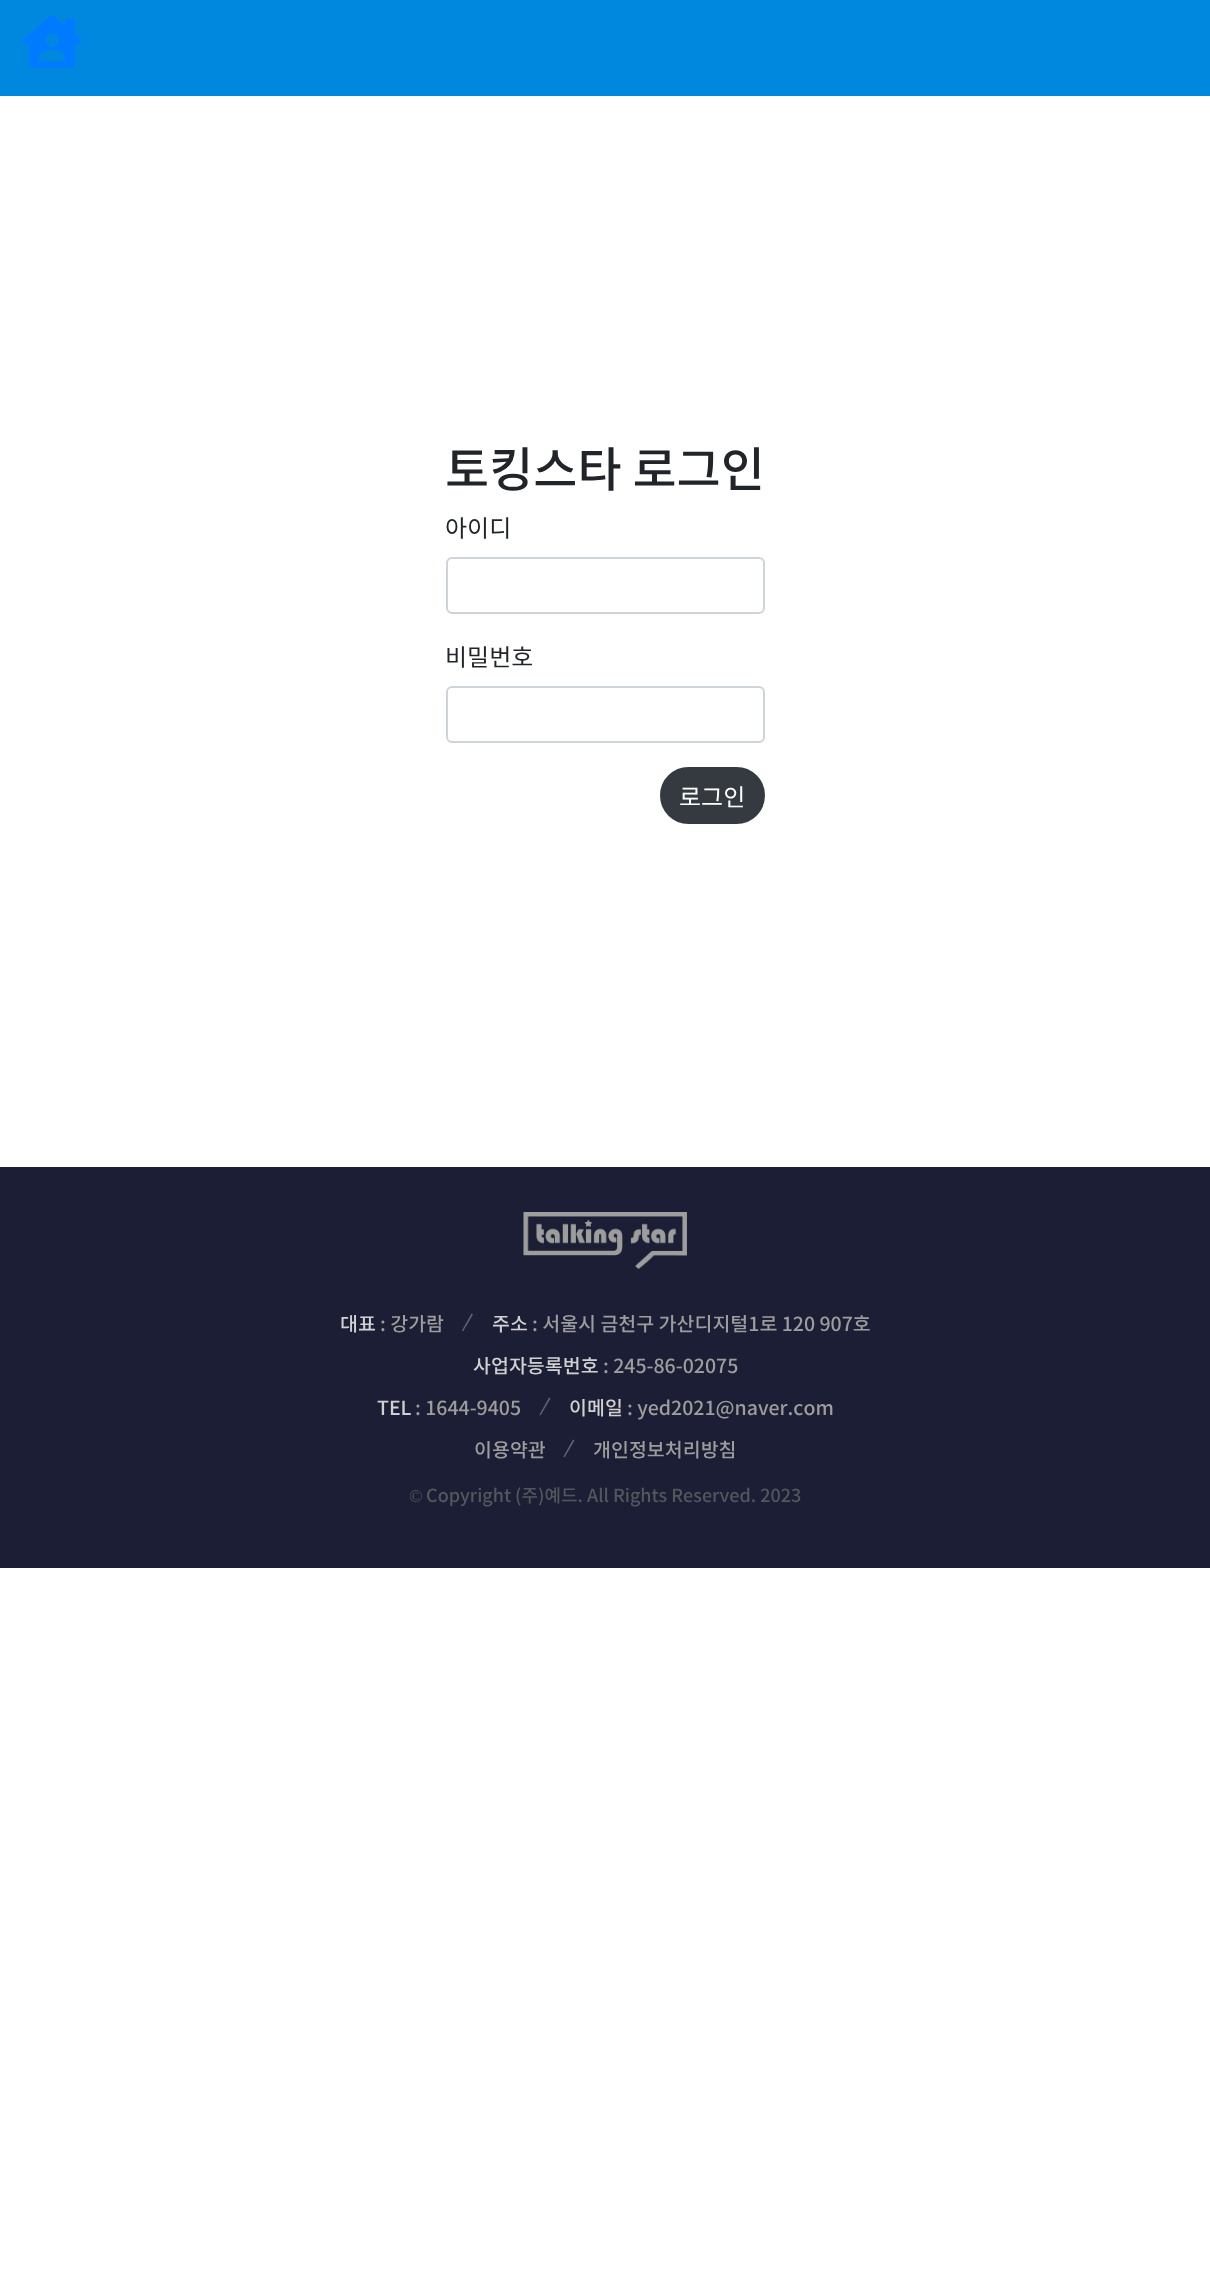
<svg xmlns="http://www.w3.org/2000/svg" width="1210" height="2288" viewBox="0 0 1210 2288">
  <rect width="100%" height="100%" fill="#fff"/>
  <path d="M0 0h1210v96H0z" fill="#0088df"/>
  <image x="22" y="15" width="60" height="53" href="img/1.png"/>
  <rect x="447" y="558" width="317" height="55" rx="5" fill="none" stroke="#ced4da" stroke-width="2"/>
  <rect x="447" y="687" width="317" height="55" rx="5" fill="none" stroke="#ced4da" stroke-width="2"/>
  <rect x="661" y="768" width="103" height="55" rx="27.5" fill="#343a40" stroke="#343a40" stroke-width="2"/>
  <path d="M0 1167h1210v401H0z" fill="#1b1e35"/>
  <image x="523" y="1212" width="164" height="57" href="img/2.png"/>
  <path d="M471.5 1313.5L473 1314.5L463 1331.5L462 1330.5Z" fill="#5f6272"/>
  <path d="M549 1397.5L550.5 1398.5L540.5 1415.5L539.5 1414.5Z" fill="#5f6272"/>
  <path d="M573 1439.5L574.5 1440.5L564.5 1457.5L563.5 1456.5Z" fill="#5f6272"/>
  <text x="445" y="487" font-family="Noto Sans KR" font-size="48" font-weight="500" fill="#212529">토킹스타 로그인</text>
  <g font-family="Noto Sans KR" font-size="24" fill="#212529">
    <text x="445" y="537">아이디</text>
    <text x="445" y="666">비밀번호</text>
  </g>
  <text x="679" y="806" font-family="Noto Sans KR" font-size="24" fill="#fff">로그인</text>
  <text x="340" y="1331" font-family="Noto Sans KR" font-size="19.5" font-weight="500" fill="#d1d1d1">대표</text>
  <text x="380" y="1331" font-family="Noto Sans KR" font-size="19.5" font-weight="500" fill="#9d9d9c">: 강가람</text>
  <text x="492" y="1331" font-family="Noto Sans KR" font-size="19.5" font-weight="500" fill="#d1d1d1">주소</text>
  <text x="532" y="1331" font-family="Noto Sans KR" font-size="19.5" font-weight="500" fill="#9d9d9c">: 서울시 금천구 가산디지털1로 120 907호</text>
  <text x="473" y="1373" font-family="Noto Sans KR" font-size="19.5" font-weight="500" fill="#d1d1d1">사업자등록번호</text>
  <text x="603" y="1373" font-family="Noto Sans KR" font-size="19.5" font-weight="500" fill="#9d9d9c">: 245-86-02075</text>
  <text x="377" y="1415" font-family="Noto Sans KR" font-size="19.5" font-weight="500" fill="#d1d1d1">TEL</text>
  <text x="415" y="1415" font-family="Noto Sans KR" font-size="19.5" font-weight="500" fill="#9d9d9c">: 1644-9405</text>
  <text x="569" y="1415" font-family="Noto Sans KR" font-size="19.5" font-weight="500" fill="#d1d1d1">이메일</text>
  <g font-family="Noto Sans KR" font-size="19.5" font-weight="500" fill="#9d9d9c">
    <text x="627" y="1415">: yed2021@naver.com</text>
    <text x="474" y="1457">이용약관</text>
    <text x="593" y="1457">개인정보처리방침</text>
  </g>
  <text x="409" y="1502" font-family="Liberation Serif" font-size="18" fill="#53575c">©</text>
  <text x="426" y="1502" font-family="Noto Sans KR" font-size="18" font-weight="500" fill="#53575c">Copyright (주)예드. All Rights Reserved. 2023</text>
</svg>
